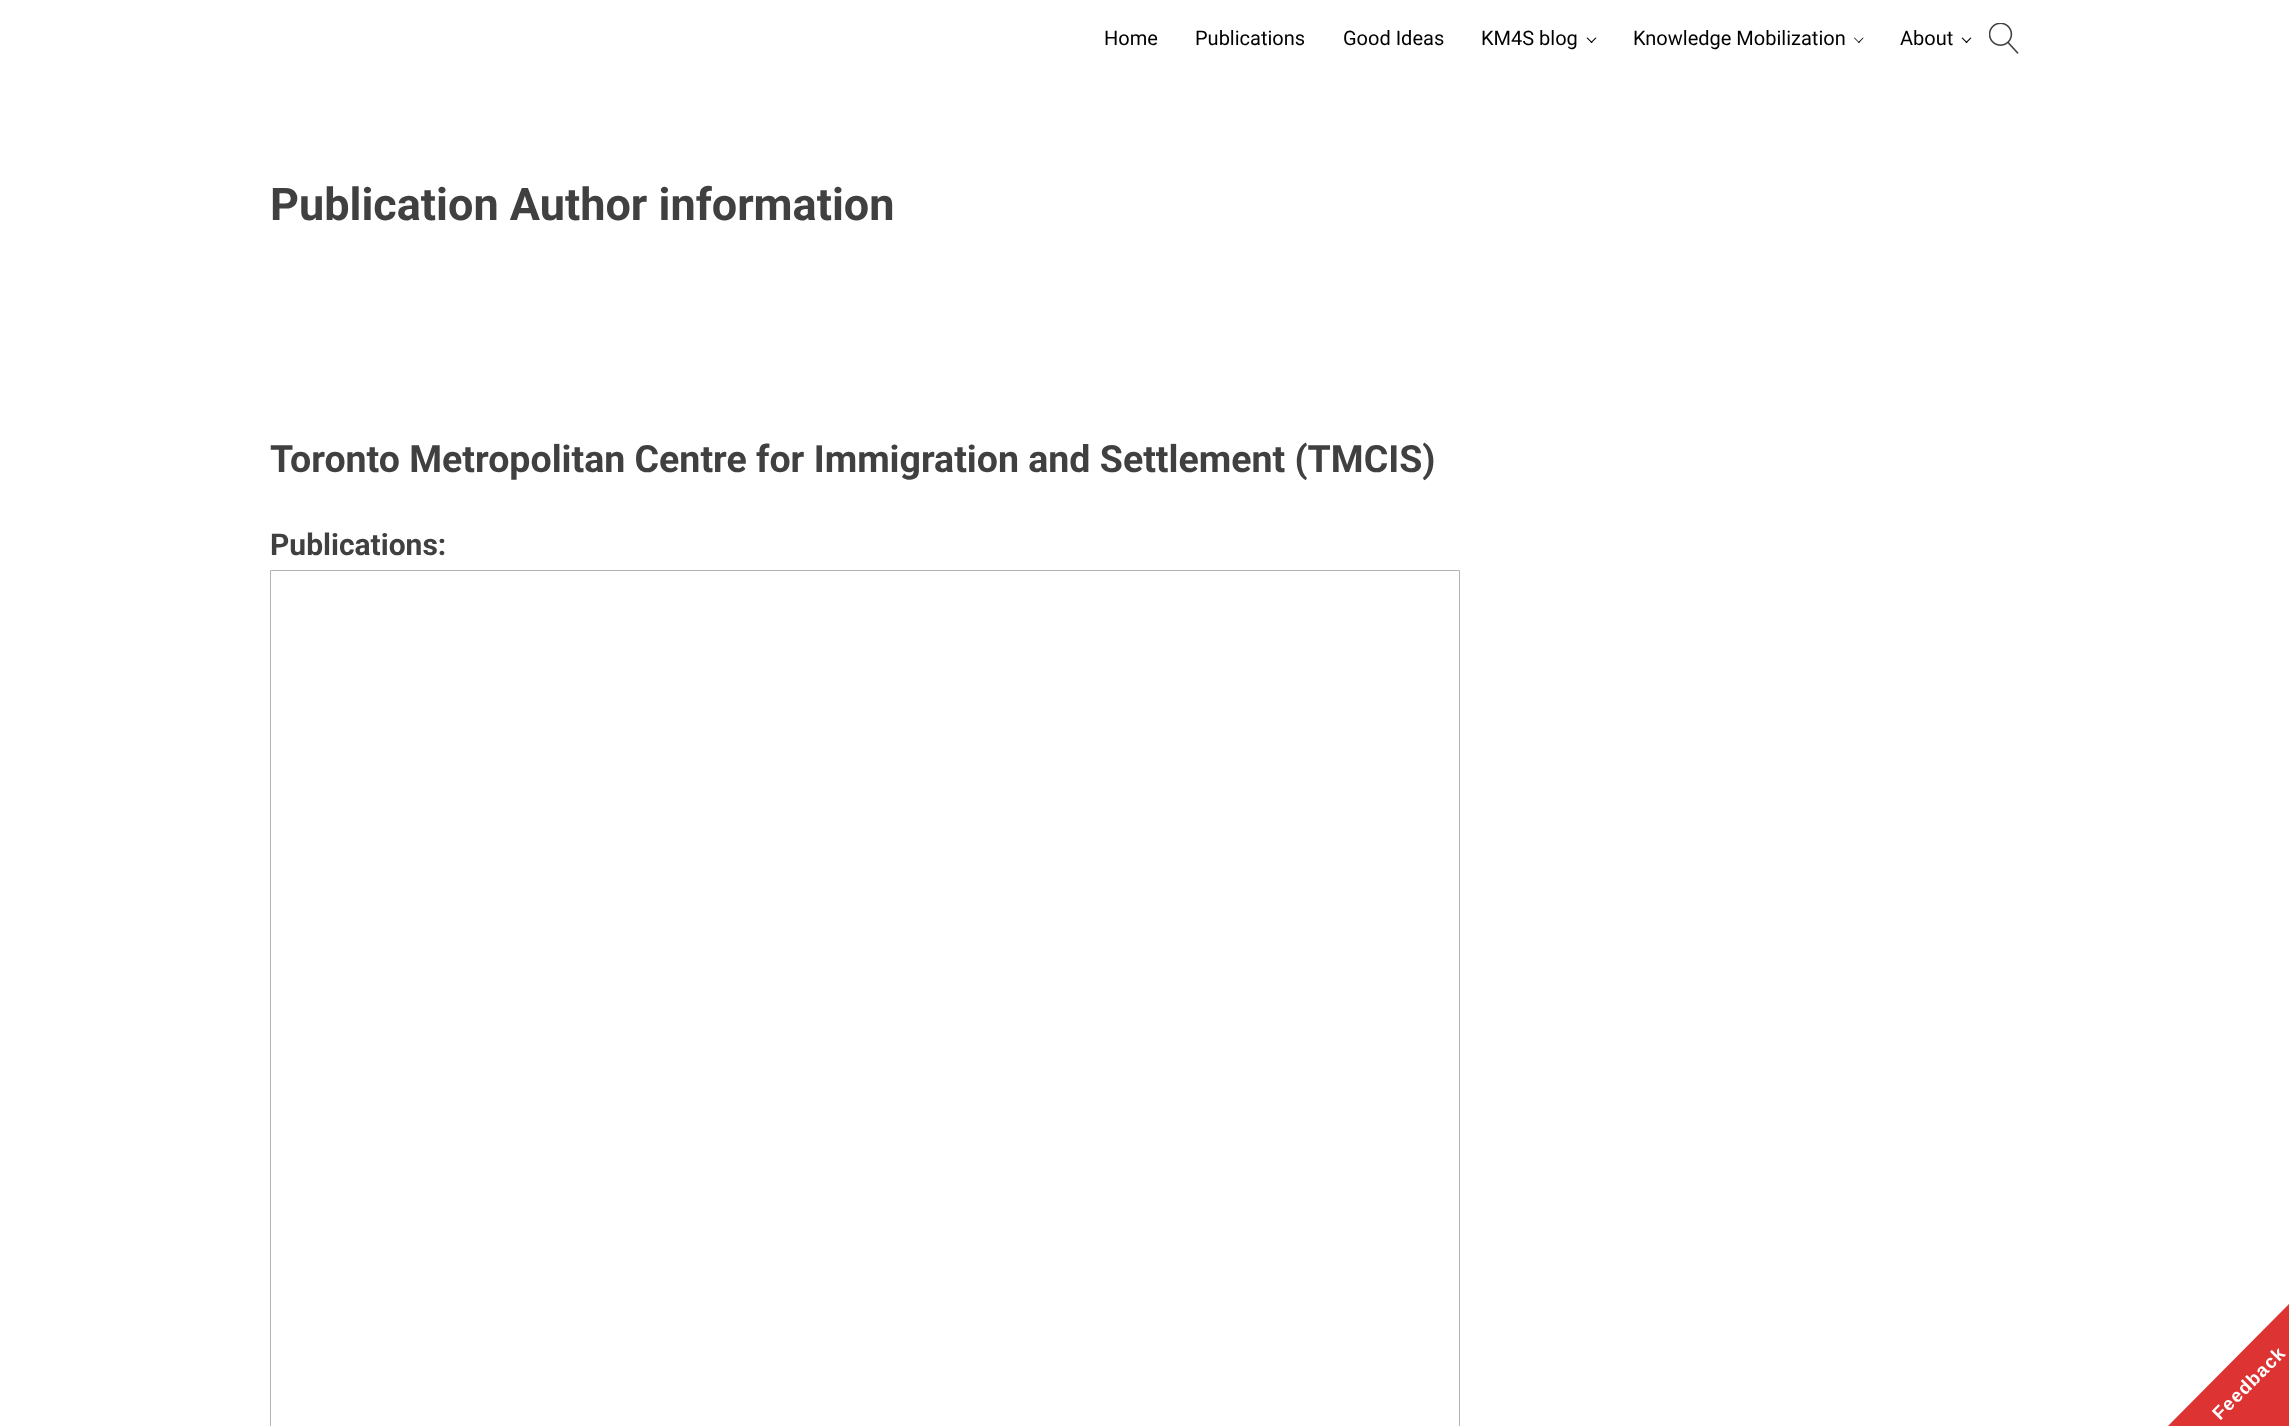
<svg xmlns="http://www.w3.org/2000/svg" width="2289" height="1426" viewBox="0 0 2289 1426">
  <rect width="100%" height="100%" fill="#fff"/>
  <path d="M1596.5 38L1591.5 43L1590.5 42.5L1595.5 37.5Z" fill="#000"/>
  <path d="M1592.5 42.5L1591.5 43L1586.5 38L1587.5 37.5Z" fill="#000"/>
  <path d="M1863.5 38L1859 43L1858 42.5L1863 37.5Z" fill="#000"/>
  <path d="M1859.5 42.5L1859 43L1854 38L1854.5 37.5Z" fill="#000"/>
  <path d="M1971.5 38L1966.5 43L1965.5 42.5L1970.5 37.5Z" fill="#000"/>
  <path d="M1967.5 42.5L1966.5 43L1961.5 38L1962.5 37.5Z" fill="#000"/>
  <image x="1989" y="23" width="30" height="31" href="img/1.png"/>
  <path d="M270.5 570.5h1189v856H270.5z" fill="none" stroke="#b3b3b3"/>
  <path d="M2164 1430L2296 1297C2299 1295 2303 1295 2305 1297L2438 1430C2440 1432 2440 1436 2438 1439L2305 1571C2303 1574 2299 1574 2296 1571L2164 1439C2161 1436 2161 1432 2164 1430Z" fill="#d33"/>
  <g font-family="Roboto" font-size="20" fill="#000">
    <text x="1104" y="45">Home</text>
    <text x="1195" y="45">Publications</text>
    <text x="1343" y="45">Good Ideas</text>
    <text x="1481" y="45">KM4S blog</text>
    <text x="1633" y="45">Knowledge Mobilization</text>
    <text x="1900" y="45">About</text>
  </g>
  <text x="270" y="220" font-family="Roboto" font-size="45" font-weight="bold" fill="#404040">Publication Author information</text>
  <text x="270" y="472" font-family="Roboto" font-size="37.5" font-weight="bold" fill="#404040">Toronto Metropolitan Centre for Immigration and Settlement (TMCIS)</text>
  <text x="270" y="555" font-family="Roboto" font-size="30" font-weight="bold" fill="#404040">Publications:</text>
  <text x="2220" y="1421" transform="rotate(-45 2220 1421)" font-family="Liberation Sans" font-size="18.75" font-weight="bold" letter-spacing="1" fill="#fff">Feedback</text>
</svg>
